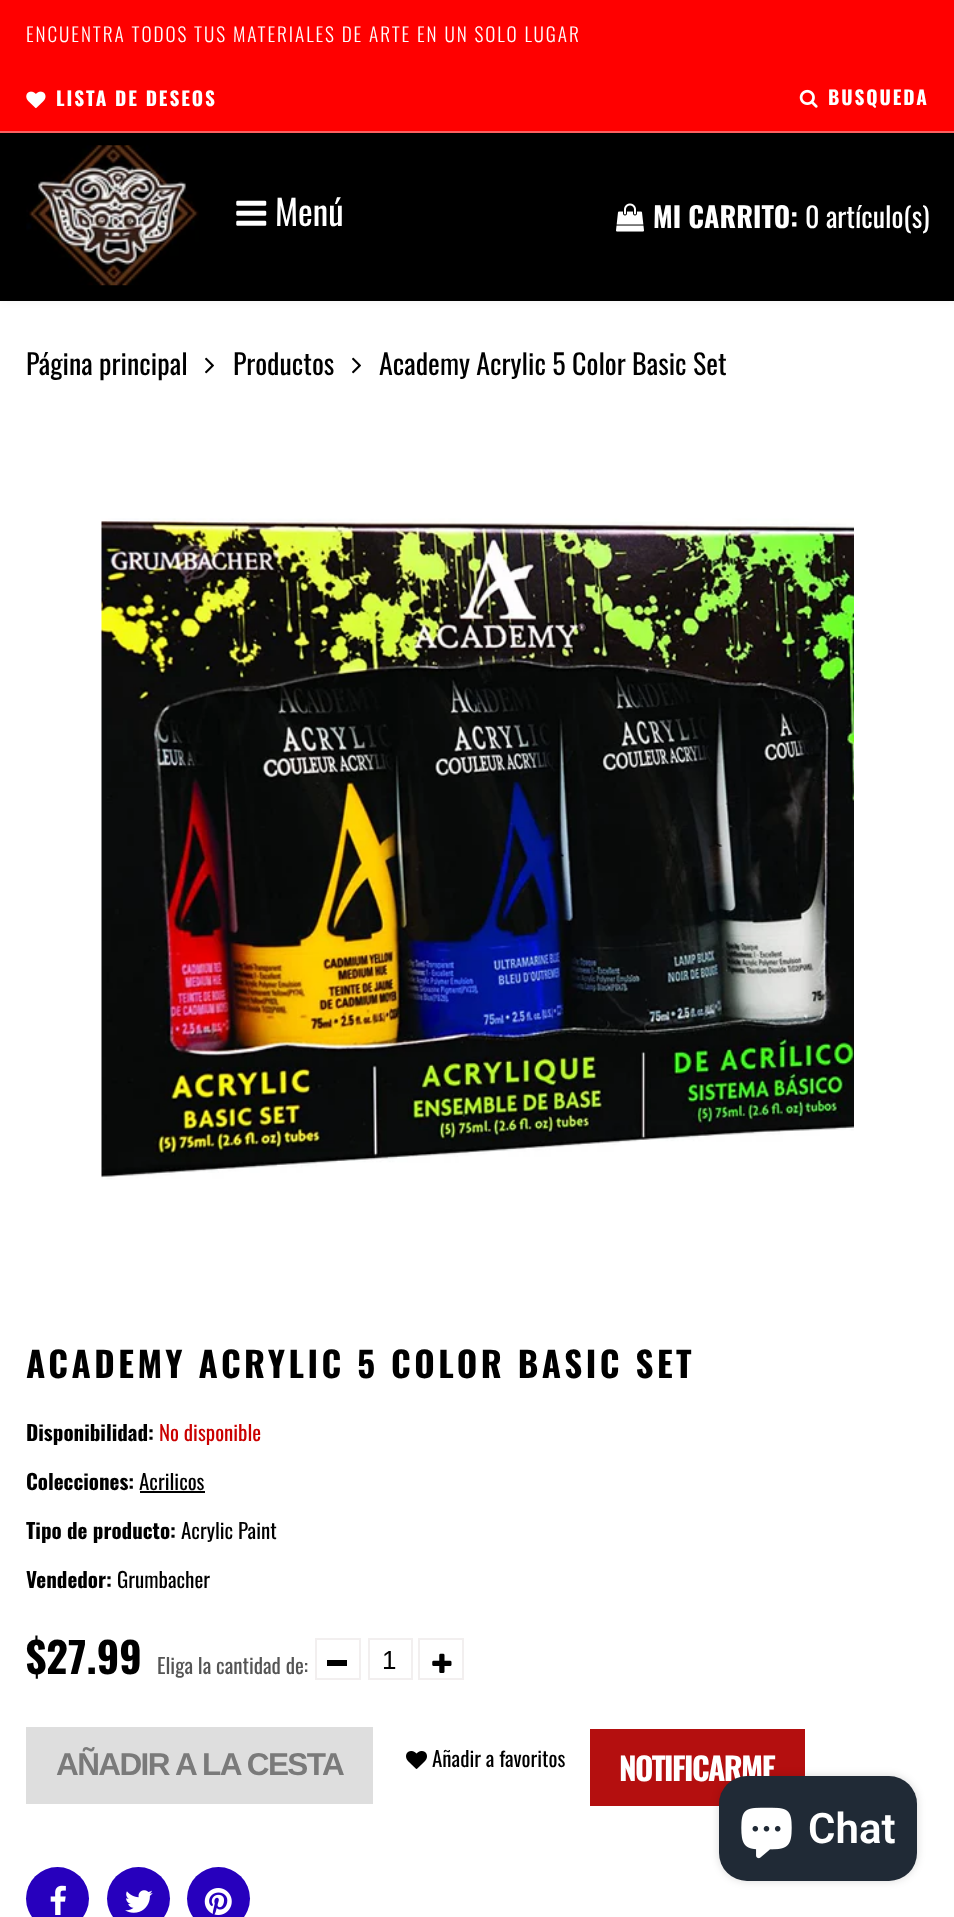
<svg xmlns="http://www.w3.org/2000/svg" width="954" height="1917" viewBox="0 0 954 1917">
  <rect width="100%" height="100%" fill="#fff"/>
  <path d="M0 0h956v301H0z" fill="#0000000d" filter="blur(4.5px)"/>
  <path d="M0 0h954v131H0z" fill="#f00"/>
  <path d="M0 131h954v2H0z" fill="#fa6060"/>
  <image x="26" y="91" width="20" height="18" href="img/1.png"/>
  <image x="799" y="89" width="19" height="19" href="img/2.png"/>
  <path d="M0 133h954v168H0z" fill="#000"/>
  <image x="26" y="145" width="173" height="141" href="img/3.png"/>
  <image x="236" y="200" width="31" height="26" href="img/4.png"/>
  <image x="616" y="203" width="28" height="29" href="img/5.png"/>
  <image x="205" y="357" width="9" height="17" href="img/6.png"/>
  <image x="352" y="357" width="9" height="17" href="img/6.png"/>
  <image x="101" y="518" width="753" height="662" href="img/7.png"/>
  <path d="M140 1491h65v2H140z" fill="#000"/>
  <path d="M316 1639h44v40H316z" fill="none" stroke="#f2efef" stroke-width="2"/>
  <path d="M327 1660h20v6H327z" fill="#000"/>
  <path d="M369 1639h43v40H369z" fill="none" stroke="#f2efef" stroke-width="2"/>
  <path d="M419 1639h44v40H419z" fill="none" stroke="#f2efef" stroke-width="2"/>
  <image x="432" y="1653" width="20" height="20" href="img/8.png"/>
  <path d="M26 1727h347v77H26z" fill="#dedede"/>
  <image x="406" y="1751" width="21" height="18" href="img/9.png"/>
  <path d="M590 1729h215v77H590z" fill="#b40f0f"/>
  <circle cx="57.5" cy="1898.5" r="31.5" fill="#2700bd"/>
  <image x="50" y="1885" width="16" height="30" href="img/10.png"/>
  <circle cx="138.5" cy="1898.5" r="31.5" fill="#2700bd"/>
  <image x="125" y="1890" width="28" height="23" href="img/11.png"/>
  <circle cx="218.5" cy="1898.5" r="31.5" fill="#2700bd"/>
  <image x="204" y="1888" width="28" height="27" href="img/12.png"/>
  <rect x="719" y="1776" width="198" height="105" rx="28" fill="#00000026" filter="blur(4.5px)"/>
  <text x="26" y="42" font-family="Oswald" font-size="19.25" font-weight="300" letter-spacing="1.93" fill="#fff">ENCUENTRA TODOS TUS MATERIALES DE ARTE EN UN SOLO LUGAR</text>
  <g font-family="Oswald" font-size="19.25" font-weight="bold" letter-spacing="1.93" fill="#fff">
    <text x="56" y="106">LISTA DE DESEOS</text>
    <text x="828" y="105">BUSQUEDA</text>
  </g>
  <text x="275" y="226" font-family="Oswald" font-size="35" fill="#fff">Menú</text>
  <text x="653" y="228" font-family="Oswald" font-size="28" font-weight="bold" fill="#fff">MI CARRITO:</text>
  <text x="805" y="228" font-family="Oswald" font-size="28" fill="#fff">0 artículo(s)</text>
  <g font-family="Oswald" font-size="28" fill="#000">
    <text x="26" y="375">Página principal</text>
    <text x="233" y="375">Productos</text>
    <text x="379" y="375">Academy Acrylic 5 Color Basic Set</text>
  </g>
  <text x="26" y="1378" font-family="Oswald" font-size="35" font-weight="bold" letter-spacing="3.5" fill="#000">ACADEMY ACRYLIC 5 COLOR BASIC SET</text>
  <text x="26" y="1441" font-family="Oswald" font-size="21" font-weight="bold" fill="#000">Disponibilidad:</text>
  <text x="159" y="1441" font-family="Oswald" font-size="21" fill="#ca0000">No disponible</text>
  <text x="26" y="1490" font-family="Oswald" font-size="21" font-weight="bold" fill="#000">Colecciones:</text>
  <text x="139" y="1490" font-family="Oswald" font-size="21" fill="#000">Acrilicos</text>
  <text x="26" y="1539" font-family="Oswald" font-size="21" font-weight="bold" fill="#000">Tipo de producto:</text>
  <text x="181" y="1539" font-family="Oswald" font-size="21" fill="#000">Acrylic Paint</text>
  <text x="26" y="1588" font-family="Oswald" font-size="21" font-weight="bold" fill="#000">Vendedor:</text>
  <text x="117" y="1588" font-family="Oswald" font-size="21" fill="#000">Grumbacher</text>
  <text x="26" y="1674" font-family="Oswald" font-size="42" font-weight="bold" fill="#000">$27.99</text>
  <text x="157" y="1674" font-family="Oswald" font-size="21" fill="#555">Eliga la cantidad de:</text>
  <text x="382" y="1669" font-family="Liberation Sans" font-size="26" fill="#000">1</text>
  <text x="56" y="1775" font-family="Liberation Sans" font-size="31.5" font-weight="bold" letter-spacing="-1.6" fill="#7a7a7a">AÑADIR A LA CESTA</text>
  <text x="432" y="1767" font-family="Oswald" font-size="21" fill="#000">Añadir a favoritos</text>
  <text x="619" y="1781" font-family="Oswald" font-size="31.5" font-weight="bold" letter-spacing="-1.6" fill="#fff">NOTIFICARME</text>
  <rect x="719" y="1776" width="198" height="105" rx="28" fill="#202a36"/>
  <image x="741" y="1807" width="51" height="52" href="img/13.png"/>
  <text x="808" y="1843" font-family="Roboto" font-size="42" font-weight="600" fill="#fff">Chat</text>
</svg>
